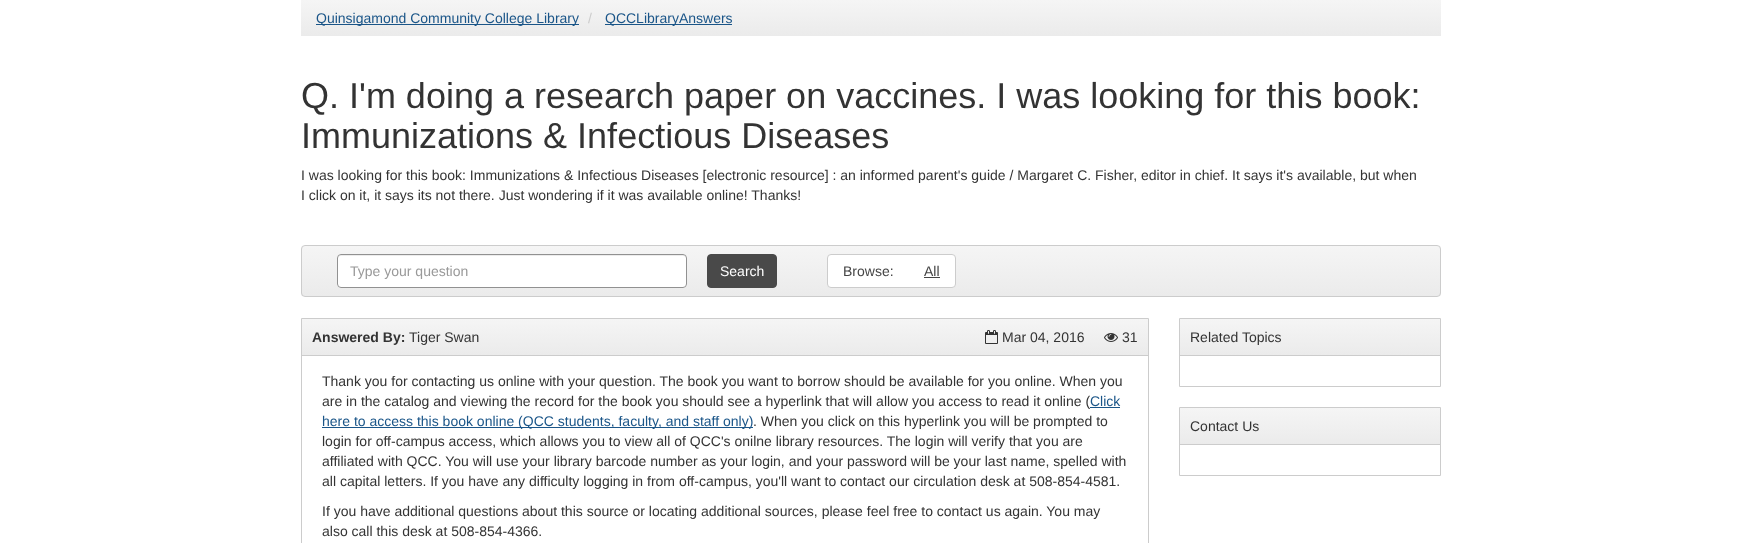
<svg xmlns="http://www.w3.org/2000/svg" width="1742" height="543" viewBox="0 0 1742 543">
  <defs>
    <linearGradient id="g1" gradientUnits="userSpaceOnUse" x1="871" y1="0" x2="871" y2="36"><stop offset="0" stop-color="#f5f5f5"/><stop offset="1" stop-color="#ebebeb"/></linearGradient>
    <clipPath id="clip1"><rect x="301" y="245" width="1140" height="52" rx="4"/></clipPath>
    <linearGradient id="g2" gradientUnits="userSpaceOnUse" x1="871" y1="246" x2="871" y2="296"><stop offset="0" stop-color="#f5f5f5"/><stop offset="1" stop-color="#ebebeb"/></linearGradient>
    <linearGradient id="g3" gradientUnits="userSpaceOnUse" x1="725" y1="319" x2="725" y2="355"><stop offset="0" stop-color="#f5f5f5"/><stop offset="1" stop-color="#ebebeb"/></linearGradient>
    <linearGradient id="g4" gradientUnits="userSpaceOnUse" x1="1310" y1="319" x2="1310" y2="355"><stop offset="0" stop-color="#f5f5f5"/><stop offset="1" stop-color="#ebebeb"/></linearGradient>
    <linearGradient id="g5" gradientUnits="userSpaceOnUse" x1="1310" y1="408" x2="1310" y2="444"><stop offset="0" stop-color="#f5f5f5"/><stop offset="1" stop-color="#ebebeb"/></linearGradient>
  </defs>
  <rect width="100%" height="100%" fill="#fff"/>
  <path d="M301 0h1140v36H301z" fill="url(#g1)"/>
  <path d="M316 24h263v1H316z" fill="#1a5588"/>
  <path d="M605 24h127v1H605z" fill="#1a5588"/>
  <g clip-path="url(#clip1)">
    <path d="M301 246h1140v50H301z" fill="url(#g2)"/>
  </g>
  <rect x="301.5" y="245.5" width="1139" height="51" rx="3.5" fill="none" stroke="#ccc"/>
  <rect x="337" y="254" width="350" height="34" rx="4" fill="#fff"/>
  <path d="M341 256H683C685 256 686 257 686 259C686 257 685 255 683 255H341L339 256L338 259C338 257 339 256 341 256Z" fill="#ececec"/>
  <rect x="337.5" y="254.5" width="349" height="33" rx="3.5" fill="none" stroke="#919191"/>
  <rect x="707.5" y="254.5" width="69" height="33" rx="3.5" fill="#494949" stroke="#494949"/>
  <rect x="827.5" y="254.5" width="128" height="33" rx="3.5" fill="#fff" stroke="#ccc"/>
  <path d="M924 277h16v1H924z" fill="#454545"/>
  <path d="M301.5 318.5h847v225H301.5z" fill="none" stroke="#ccc"/>
  <path d="M302 319h846v36H302z" fill="url(#g3)"/>
  <path d="M302 355h846v1H302z" fill="#ccc"/>
  <image x="985" y="330" width="13" height="14" href="img/1.png"/>
  <image x="1104" y="333" width="14" height="9" href="img/2.png"/>
  <path d="M1090 407h30v1H1090z" fill="#1a5588"/>
  <path d="M322 427h431v1H322z" fill="#1a5588"/>
  <path d="M1179.5 318.5h261v68H1179.5z" fill="none" stroke="#ccc"/>
  <path d="M1180 319h260v36H1180z" fill="url(#g4)"/>
  <path d="M1180 355h260v1H1180z" fill="#ccc"/>
  <path d="M1179.5 407.5h261v68H1179.5z" fill="none" stroke="#ccc"/>
  <path d="M1180 408h260v36H1180z" fill="url(#g5)"/>
  <path d="M1180 444h260v1H1180z" fill="#ccc"/>
  <text x="316" y="23" font-family="Liberation Sans" font-size="14" fill="#1a5588">Quinsigamond Community College Library</text>
  <text x="588" y="23" font-family="Liberation Sans" font-size="14" fill="#ccc">/</text>
  <text x="605" y="23" font-family="Liberation Sans" font-size="14" fill="#1a5588">QCCLibraryAnswers</text>
  <g font-family="Liberation Sans" font-size="36" fill="#333">
    <text x="301" y="108">Q. I'm doing a research paper on vaccines. I was looking for this book:</text>
    <text x="301" y="148">Immunizations &amp; Infectious Diseases</text>
  </g>
  <g font-family="Liberation Sans" font-size="14" fill="#333">
    <text x="301" y="180">I was looking for this book: Immunizations &amp; Infectious Diseases [electronic resource] : an informed parent's guide / Margaret C. Fisher, editor in chief. It says it's available, but when</text>
    <text x="301" y="200">I click on it, it says its not there. Just wondering if it was available online! Thanks!</text>
  </g>
  <text x="350" y="276" font-family="Liberation Sans" font-size="14" fill="#999">Type your question</text>
  <text x="720" y="276" font-family="Liberation Sans" font-size="14" fill="#fff">Search</text>
  <g font-family="Liberation Sans" font-size="14" fill="#454545">
    <text x="843" y="276">Browse:</text>
    <text x="924" y="276">All</text>
  </g>
  <text x="312" y="342" font-family="Liberation Sans" font-size="14" font-weight="bold" fill="#333">Answered By:</text>
  <g font-family="Liberation Sans" font-size="14" fill="#333">
    <text x="409" y="342">Tiger Swan</text>
    <text x="1002" y="342">Mar 04, 2016</text>
    <text x="1122" y="342">31</text>
    <text x="322" y="386">Thank you for contacting us online with your question. The book you want to borrow should be available for you online. When you</text>
    <text x="322" y="406">are in the catalog and viewing the record for the book you should see a hyperlink that will allow you access to read it online (</text>
  </g>
  <g font-family="Liberation Sans" font-size="14" fill="#1a5588">
    <text x="1090" y="406">Click</text>
    <text x="322" y="426">here to access this book online (QCC students, faculty, and staff only)</text>
  </g>
  <g font-family="Liberation Sans" font-size="14" fill="#333">
    <text x="753" y="426">. When you click on this hyperlink you will be prompted to</text>
    <text x="322" y="446">login for off-campus access, which allows you to view all of QCC's onilne library resources. The login will verify that you are</text>
    <text x="322" y="466">affiliated with QCC. You will use your library barcode number as your login, and your password will be your last name, spelled with</text>
    <text x="322" y="486">all capital letters. If you have any difficulty logging in from off-campus, you'll want to contact our circulation desk at 508-854-4581.</text>
    <text x="322" y="516">If you have additional questions about this source or locating additional sources, please feel free to contact us again. You may</text>
    <text x="322" y="536">also call this desk at 508-854-4366.</text>
    <text x="1190" y="342">Related Topics</text>
    <text x="1190" y="431">Contact Us</text>
  </g>
</svg>
